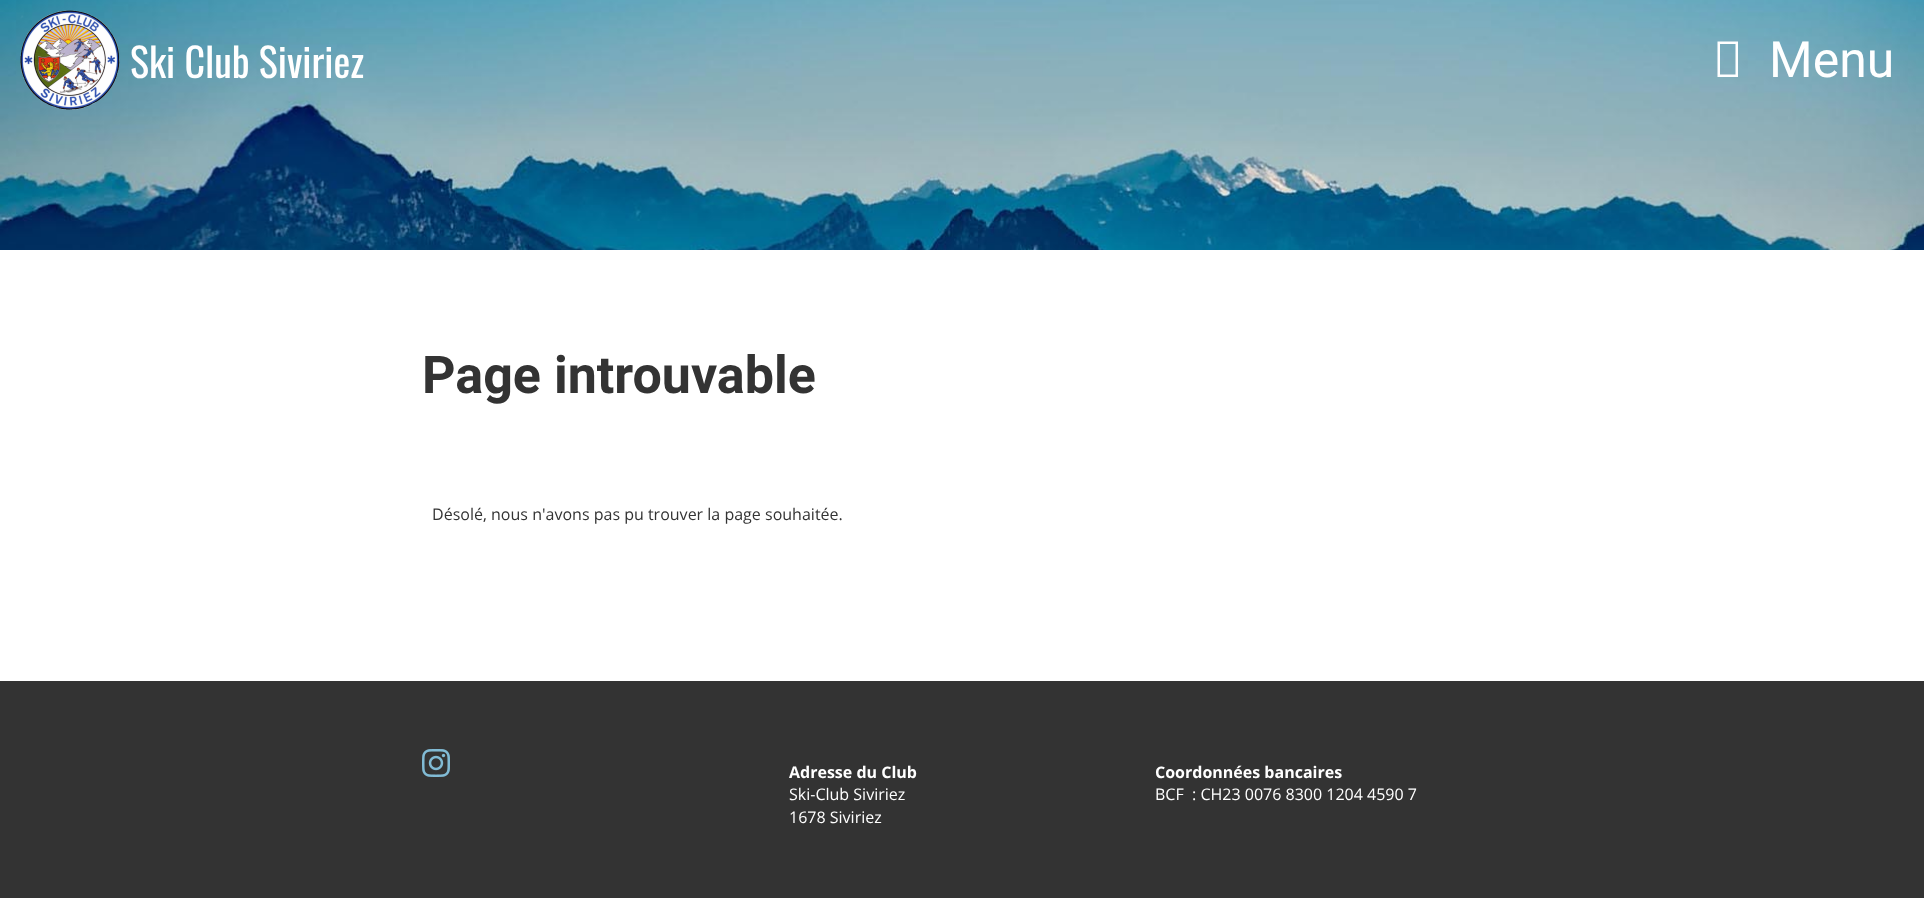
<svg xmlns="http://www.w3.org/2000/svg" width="1924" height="898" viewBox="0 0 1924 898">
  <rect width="100%" height="100%" fill="#fff"/>
  <image x="0" y="0" width="1924" height="250" href="img/2.png"/>
  <image x="20" y="10" width="100" height="100" href="img/1.png"/>
  <path d="M1717.5 77V41.5H1738V77ZM1720 74.5H1735.5V44H1720Z" fill="#fff"/>
  <path d="M0 681h1924v217H0z" fill="#333"/>
  <image x="422" y="749" width="28" height="28" href="img/3.png"/>
  <text x="130" y="78" font-family="Oswald" font-size="40" fill="#fff">Ski Club Siviriez</text>
  <text x="1769" y="77" font-family="Roboto" font-size="50" fill="#fff">Menu</text>
  <text x="422" y="393" font-family="Roboto" font-size="52" font-weight="bold" fill="#333">Page introuvable</text>
  <text x="432" y="520" font-family="Open Sans" font-size="16" fill="#333">Désolé, nous n'avons pas pu trouver la page souhaitée.</text>
  <text x="789" y="778" font-family="Open Sans" font-size="16" font-weight="bold" fill="#fff">Adresse du Club</text>
  <g font-family="Open Sans" font-size="16" fill="#fff">
    <text x="789" y="800">Ski-Club Siviriez</text>
    <text x="789" y="823">1678 Siviriez</text>
  </g>
  <text x="1155" y="778" font-family="Open Sans" font-size="16" font-weight="bold" fill="#fff">Coordonnées bancaires</text>
  <text x="1155" y="800" font-family="Open Sans" font-size="16" fill="#fff" xml:space="preserve">BCF  : CH23 0076 8300 1204 4590 7</text>
</svg>
